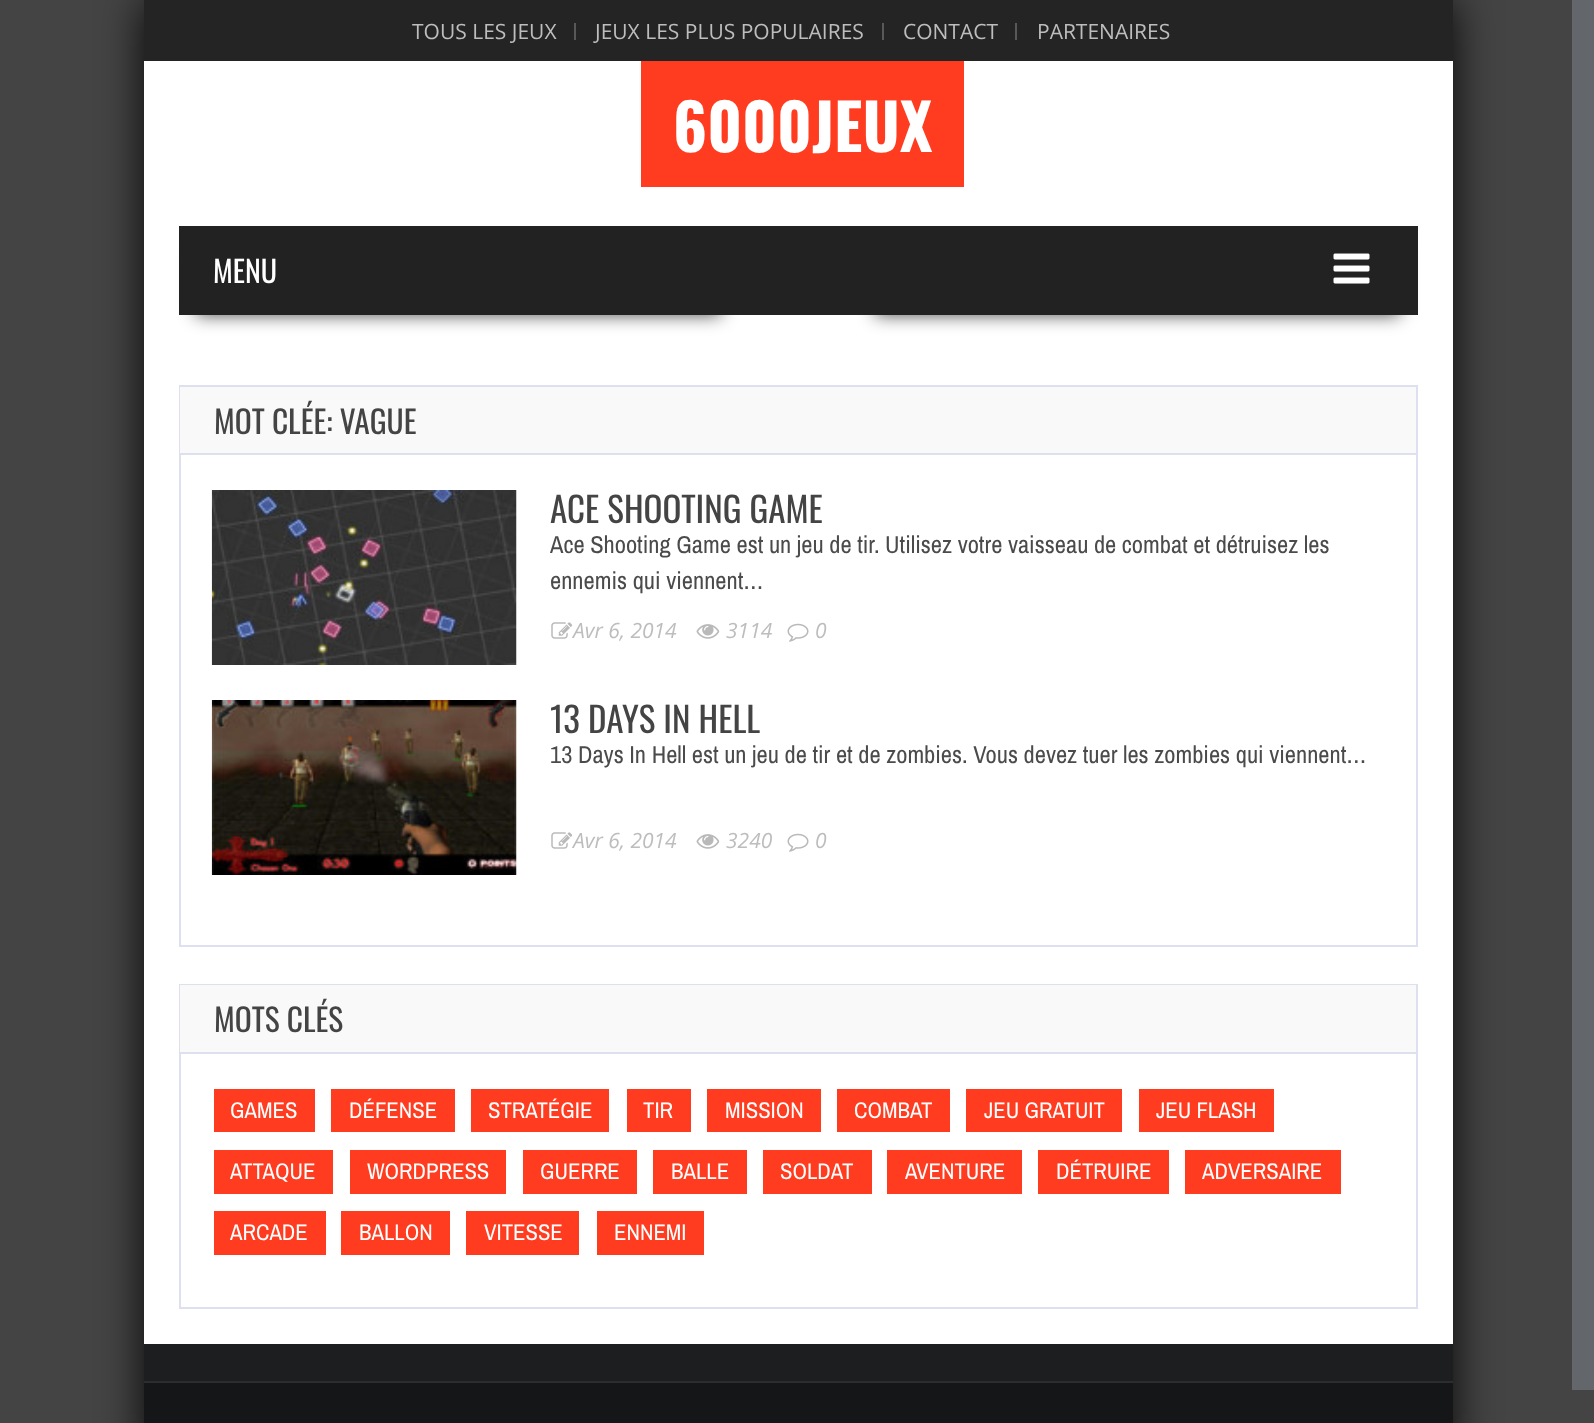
<svg xmlns="http://www.w3.org/2000/svg" width="1594" height="1423" viewBox="0 0 1594 1423">
  <rect width="100%" height="100%" fill="#444"/>
  <path d="M144 0h1309v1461H144z" fill="#000000e6" filter="blur(22px)"/>
  <path d="M144 61h1309v1283H144z" fill="#fff"/>
  <path d="M144 0h1309v61H144z" fill="#242424"/>
  <path d="M574 23h2v17H574z" fill="#585858"/>
  <path d="M882 23h2v17H882z" fill="#585858"/>
  <path d="M1015 23h2v17H1015z" fill="#585858"/>
  <path d="M641 61h323v126H641z" fill="#ff3c1f"/>
  <path d="M196 252h525v63H196z" fill="#000000b3" filter="blur(9px)"/>
  <path d="M875 252h525v63H875z" fill="#000000b3" filter="blur(9px)"/>
  <path d="M179 226h1239v89H179z" fill="#222"/>
  <image x="1333" y="253" width="37" height="31" href="img/1.png"/>
  <path d="M180 386h1237v560H180z" fill="none" stroke="#dde1ef" stroke-width="2"/>
  <path d="M180 387h1236v66H180z" fill="#f9f9f9"/>
  <path d="M180 453h1236v2H180z" fill="#dde1ef"/>
  <image x="211" y="490" width="306" height="175" href="img/2.png"/>
  <image x="551" y="622" width="22" height="17" href="img/3.png"/>
  <image x="696" y="624" width="24" height="15" href="img/4.png"/>
  <image x="787" y="623" width="22" height="19" href="img/5.png"/>
  <image x="211" y="700" width="306" height="175" href="img/6.png"/>
  <image x="551" y="832" width="22" height="17" href="img/3.png"/>
  <image x="696" y="834" width="24" height="15" href="img/4.png"/>
  <image x="787" y="833" width="22" height="19" href="img/5.png"/>
  <path d="M180 985h1237v323H180z" fill="none" stroke="#dde1ef" stroke-width="2"/>
  <path d="M180 985h1236v67H180z" fill="#f9f9f9"/>
  <path d="M180 1052h1236v2H180z" fill="#dde1ef"/>
  <path d="M214 1089h101v43H214z" fill="#ff3c1f"/>
  <path d="M331 1089h124v43H331z" fill="#ff3c1f"/>
  <path d="M471 1089h138v43H471z" fill="#ff3c1f"/>
  <path d="M627 1089h64v43H627z" fill="#ff3c1f"/>
  <path d="M707 1089h114v43H707z" fill="#ff3c1f"/>
  <path d="M837 1089h113v43H837z" fill="#ff3c1f"/>
  <path d="M966 1089h156v43H966z" fill="#ff3c1f"/>
  <path d="M1139 1089h135v43H1139z" fill="#ff3c1f"/>
  <path d="M214 1150h119v44H214z" fill="#ff3c1f"/>
  <path d="M350 1150h156v44H350z" fill="#ff3c1f"/>
  <path d="M523 1150h114v44H523z" fill="#ff3c1f"/>
  <path d="M653 1150h94v44H653z" fill="#ff3c1f"/>
  <path d="M763 1150h109v44H763z" fill="#ff3c1f"/>
  <path d="M887 1150h135v44H887z" fill="#ff3c1f"/>
  <path d="M1038 1150h131v44H1038z" fill="#ff3c1f"/>
  <path d="M1185 1150h156v44H1185z" fill="#ff3c1f"/>
  <path d="M214 1211h112v44H214z" fill="#ff3c1f"/>
  <path d="M341 1211h109v44H341z" fill="#ff3c1f"/>
  <path d="M466 1211h113v44H466z" fill="#ff3c1f"/>
  <path d="M597 1211h107v44H597z" fill="#ff3c1f"/>
  <path d="M144 1344h1309v37H144z" fill="#1c1e20"/>
  <path d="M144 1383h1309v40H144z" fill="#151618"/>
  <path d="M144 1381h1309v2H144z" fill="#2c2d2f"/>
  <path d="M1572 0h22v1390H1572z" fill="#63676c"/>
  <g font-family="Open Sans" font-size="21" fill="#bdbdbd">
    <text x="412" y="39">TOUS LES JEUX</text>
    <text x="595" y="39">JEUX LES PLUS POPULAIRES</text>
    <text x="903" y="39">CONTACT</text>
    <text x="1037" y="39">PARTENAIRES</text>
  </g>
  <text x="673" y="152" font-family="Oswald" font-size="63.5" font-weight="bold" fill="#fff">6000JEUX</text>
  <text x="213" y="283" font-family="Oswald" font-size="30" fill="#fff">MENU</text>
  <text x="214" y="434" font-family="Oswald" font-size="31.5" fill="#444">MOT CLÉE: VAGUE</text>
  <text x="550" y="523" font-family="Oswald" font-size="35" fill="#444">ACE SHOOTING GAME</text>
  <g font-family="Archivo Narrow" font-size="24.5" fill="#4b4b4b">
    <text x="550" y="553">Ace Shooting Game est un jeu de tir. Utilisez votre vaisseau de combat et détruisez les</text>
    <text x="550" y="589">ennemis qui viennent…</text>
  </g>
  <g font-family="Open Sans" font-size="21" font-style="italic" fill="#bdbdbd">
    <text x="573" y="638">Avr 6, 2014</text>
    <text x="726" y="638">3114</text>
    <text x="815" y="638">0</text>
  </g>
  <text x="550" y="733" font-family="Oswald" font-size="35" fill="#444">13 DAYS IN HELL</text>
  <text x="550" y="763" font-family="Archivo Narrow" font-size="24.5" fill="#4b4b4b">13 Days In Hell est un jeu de tir et de zombies. Vous devez tuer les zombies qui viennent…</text>
  <g font-family="Open Sans" font-size="21" font-style="italic" fill="#bdbdbd">
    <text x="573" y="848">Avr 6, 2014</text>
    <text x="726" y="848">3240</text>
    <text x="815" y="848">0</text>
  </g>
  <text x="214" y="1032" font-family="Oswald" font-size="31.5" fill="#444">MOTS CLÉS</text>
  <g font-family="Archivo Narrow" font-size="22.75" fill="#fff">
    <text x="230" y="1118">GAMES</text>
    <text x="349" y="1118">DÉFENSE</text>
    <text x="488" y="1118">STRATÉGIE</text>
    <text x="643" y="1118">TIR</text>
    <text x="725" y="1118">MISSION</text>
    <text x="854" y="1118">COMBAT</text>
    <text x="984" y="1118">JEU GRATUIT</text>
    <text x="1156" y="1118">JEU FLASH</text>
    <text x="230" y="1179">ATTAQUE</text>
    <text x="367" y="1179">WORDPRESS</text>
    <text x="540" y="1179">GUERRE</text>
    <text x="671" y="1179">BALLE</text>
    <text x="780" y="1179">SOLDAT</text>
    <text x="905" y="1179">AVENTURE</text>
    <text x="1056" y="1179">DÉTRUIRE</text>
    <text x="1202" y="1179">ADVERSAIRE</text>
    <text x="230" y="1240">ARCADE</text>
    <text x="359" y="1240">BALLON</text>
    <text x="484" y="1240">VITESSE</text>
    <text x="614" y="1240">ENNEMI</text>
  </g>
</svg>
